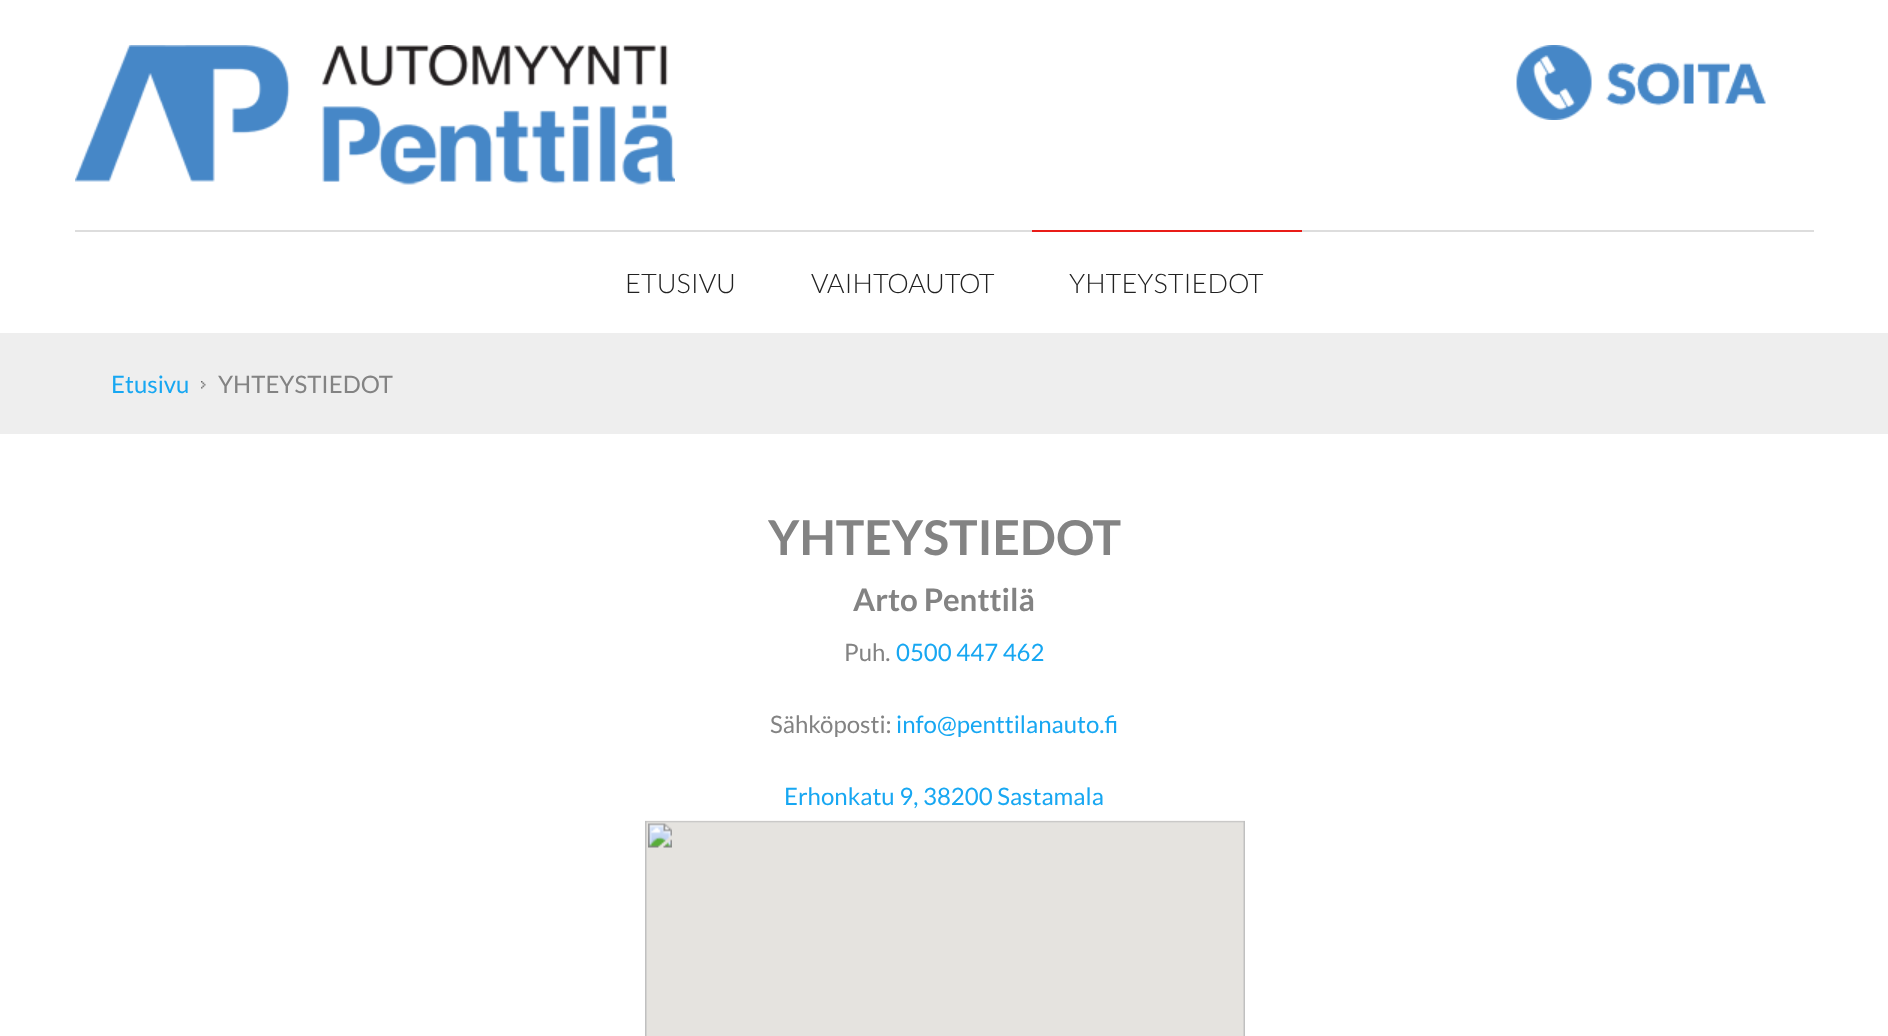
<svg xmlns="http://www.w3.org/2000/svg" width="1888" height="1036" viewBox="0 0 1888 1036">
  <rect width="100%" height="100%" fill="#fff"/>
  <image x="75" y="45" width="600" height="140" href="img/1.png"/>
  <image x="1516" y="45" width="250" height="75" href="img/2.png"/>
  <path d="M75 230h1739v2H75z" fill="#ddd"/>
  <path d="M1032 230h270v2H1032z" fill="#e91c18"/>
  <path d="M0 333h1888v101H0z" fill="#eee"/>
  <image x="201" y="381" width="5" height="8" href="img/3.png"/>
  <image x="645" y="820" width="600" height="216" href="img/4.png"/>
  <g font-family="Lato" font-size="27" font-weight="300" fill="#222">
    <text x="625" y="293">ETUSIVU</text>
    <text x="811" y="293">VAIHTOAUTOT</text>
    <text x="1069" y="293">YHTEYSTIEDOT</text>
  </g>
  <text x="111" y="393" font-family="Lato" font-size="24" fill="#17a7f2">Etusivu</text>
  <text x="218" y="393" font-family="Lato" font-size="24" fill="#838383">YHTEYSTIEDOT</text>
  <text x="768" y="555" font-family="Lato" font-size="48" font-weight="bold" fill="#838383">YHTEYSTIEDOT</text>
  <text x="853" y="611" font-family="Lato" font-size="31.25" font-weight="bold" fill="#838383">Arto Penttilä</text>
  <text x="844" y="661" font-family="Lato" font-size="24" fill="#838383">Puh.</text>
  <text x="896" y="661" font-family="Lato" font-size="24" fill="#17a7f2">0500 447 462</text>
  <text x="770" y="733" font-family="Lato" font-size="24" fill="#838383">Sähköposti:</text>
  <g font-family="Lato" font-size="24" fill="#17a7f2">
    <text x="896" y="733">info@penttilanauto.fi</text>
    <text x="784" y="805">Erhonkatu 9, 38200 Sastamala</text>
  </g>
</svg>
